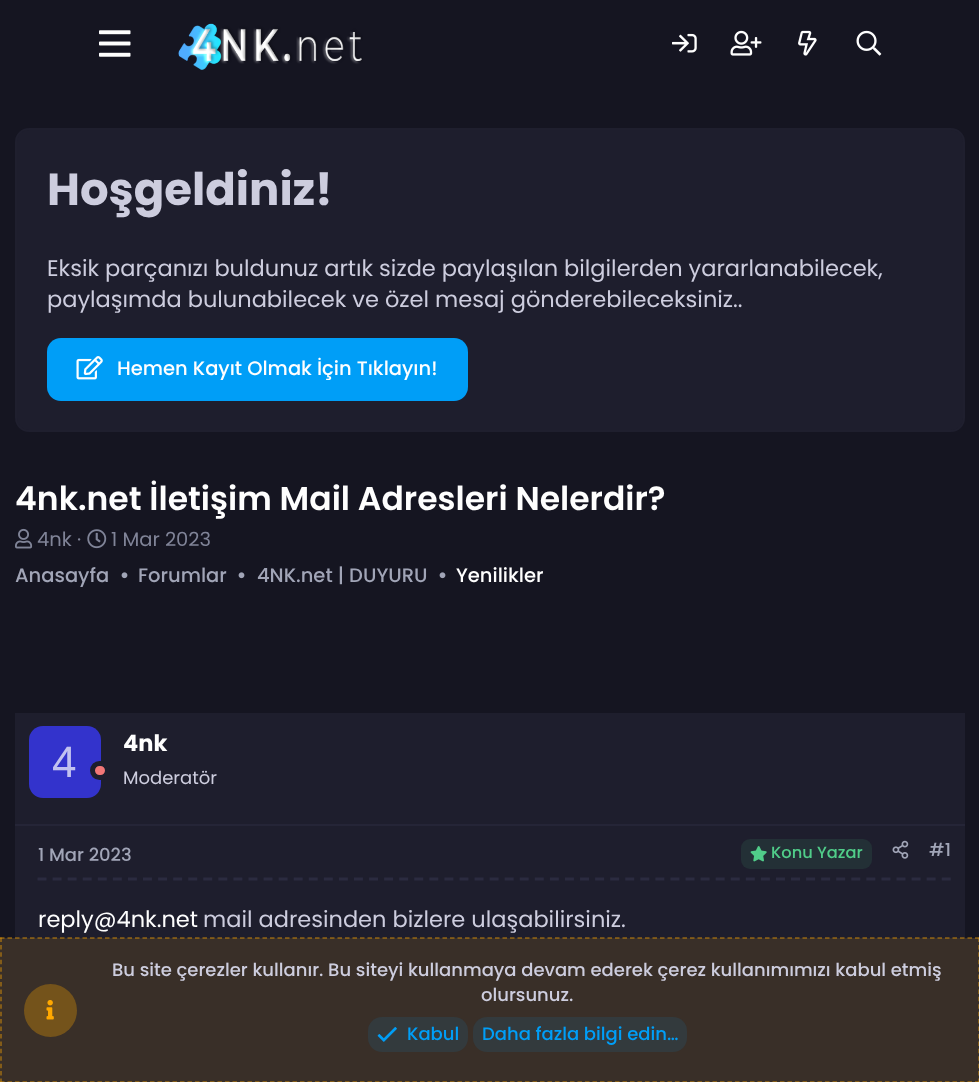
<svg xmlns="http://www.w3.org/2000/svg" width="979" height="1082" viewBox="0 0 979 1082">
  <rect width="100%" height="100%" fill="#151521"/>
  <image x="99" y="30" width="32" height="27" href="img/1.png"/>
  <image x="178" y="23" width="185" height="47" href="img/2.png"/>
  <image x="672" y="33" width="25" height="20" href="img/3.png"/>
  <image x="730" y="30" width="32" height="26" href="img/4.png"/>
  <image x="798" y="30" width="19" height="26" href="img/5.png"/>
  <image x="856" y="30" width="26" height="26" href="img/6.png"/>
  <rect x="16" y="129" width="948" height="302" rx="13" fill="#1e1e2d" stroke="#1f1f2e" stroke-width="2"/>
  <rect x="47" y="338" width="421" height="63" rx="14" fill="#009ef7"/>
  <image x="76" y="356" width="27" height="24" href="img/7.png"/>
  <image x="15" y="528" width="18" height="21" href="img/8.png"/>
  <image x="87" y="529" width="20" height="20" href="img/9.png"/>
  <image x="121" y="572" width="7" height="7" href="img/10.png"/>
  <image x="238" y="572" width="7" height="7" href="img/10.png"/>
  <image x="439" y="572" width="7" height="7" href="img/10.png"/>
  <path d="M15 826h950v112H15z" fill="#1e1e2d"/>
  <path d="M15 713h950v111H15z" fill="#1e1e2d"/>
  <path d="M15 824h950v2H15z" fill="#252537"/>
  <rect x="29" y="726" width="72" height="72" rx="14" fill="#33c"/>
  <rect x="92.5" y="763.5" width="15" height="14" rx="7" fill="#f27777" stroke="#1e1e2d" stroke-width="5"/>
  <path d="M37.5 879H951" fill="none" stroke="#2b2b40" stroke-width="3" stroke-dasharray="9 6.07"/>
  <rect x="741" y="839" width="131" height="30" rx="9" fill="#233036"/>
  <image x="750" y="846" width="17" height="16" href="img/11.png"/>
  <image x="892" y="840" width="17" height="19" href="img/12.png"/>
  <path d="M0 938h979v144H0z" fill="#392f28"/>
  <path d="M0 938H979.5" fill="none" stroke="#ffa80080" stroke-width="1.5" stroke-dasharray="4.5 3"/>
  <path d="M979 937.5V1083" fill="none" stroke="#ffa80080" stroke-width="1.5" stroke-dasharray="4.5 2.92"/>
  <path d="M0 1082H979.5" fill="none" stroke="#ffa80080" stroke-width="1.5" stroke-dasharray="4.5 3"/>
  <path d="M1 937.5V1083" fill="none" stroke="#ffa80080" stroke-width="1.5" stroke-dasharray="4.5 2.92"/>
  <circle cx="50.5" cy="1010.5" r="26.5" fill="#74531b"/>
  <image x="46" y="1000" width="8" height="20" href="img/13.png"/>
  <rect x="368" y="1017" width="100" height="35" rx="14" fill="#333a3d"/>
  <image x="377" y="1027" width="20" height="15" href="img/14.png"/>
  <rect x="473" y="1017" width="214" height="35" rx="14" fill="#333a3d"/>
  <text x="47" y="205" font-family="Poppins" font-size="45" font-weight="bold" fill="#cdcdde">Hoşgeldiniz!</text>
  <g font-family="Poppins" font-size="22.5" fill="#cdcdde">
    <text x="47" y="276">Eksik parçanızı buldunuz artık sizde paylaşılan bilgilerden yararlanabilecek,</text>
    <text x="47" y="307">paylaşımda bulunabilecek ve özel mesaj gönderebileceksiniz..</text>
  </g>
  <text x="117" y="375" font-family="Poppins" font-size="19.5" font-weight="500" fill="#fefefe">Hemen Kayıt Olmak İçin Tıklayın!</text>
  <text x="15" y="510" font-family="Poppins" font-size="33" font-weight="600" fill="#fefefe">4nk.net İletişim Mail Adresleri Nelerdir?</text>
  <g font-family="Poppins" font-size="19.5" fill="#808498">
    <text x="37" y="546">4nk ·</text>
    <text x="111" y="546">1 Mar 2023</text>
  </g>
  <g font-family="Poppins" font-size="19.5" font-weight="500" fill="#a1a5b7">
    <text x="15" y="582">Anasayfa</text>
    <text x="138" y="582">Forumlar</text>
    <text x="257" y="582">4NK.net | DUYURU</text>
  </g>
  <text x="456" y="582" font-family="Poppins" font-size="19.5" font-weight="500" fill="#fefefe">Yenilikler</text>
  <text x="52" y="777" font-family="Liberation Sans" font-size="44" fill="#c2c2f0">4</text>
  <text x="123" y="751" font-family="Poppins" font-size="22.5" font-weight="bold" fill="#fefefe">4nk</text>
  <text x="123" y="784" font-family="Poppins" font-size="18" fill="#cdcdde">Moderatör</text>
  <text x="38" y="861" font-family="Poppins" font-size="18" font-weight="500" fill="#a1a5b7">1 Mar 2023</text>
  <text x="771" y="858" font-family="Poppins" font-size="16.25" font-weight="500" fill="#50cd89">Konu Yazar</text>
  <text x="929" y="856" font-family="Poppins" font-size="18" font-weight="500" fill="#a1a5b7">#1</text>
  <text x="38" y="927" font-family="Poppins" font-size="22.5" fill="#fefefe">reply@4nk.net</text>
  <text x="203" y="927" font-family="Poppins" font-size="22.5" fill="#cdcdde">mail adresinden bizlere ulaşabilirsiniz.</text>
  <g font-family="Poppins" font-size="18" font-weight="500" fill="#cdcdde">
    <text x="112" y="976">Bu site çerezler kullanır. Bu siteyi kullanmaya devam ederek çerez kullanımımızı kabul etmiş</text>
    <text x="481" y="1001">olursunuz.</text>
  </g>
  <g font-family="Poppins" font-size="18" font-weight="500" fill="#009ef7">
    <text x="407" y="1040">Kabul</text>
    <text x="482" y="1040">Daha fazla bilgi edin…</text>
  </g>
</svg>
